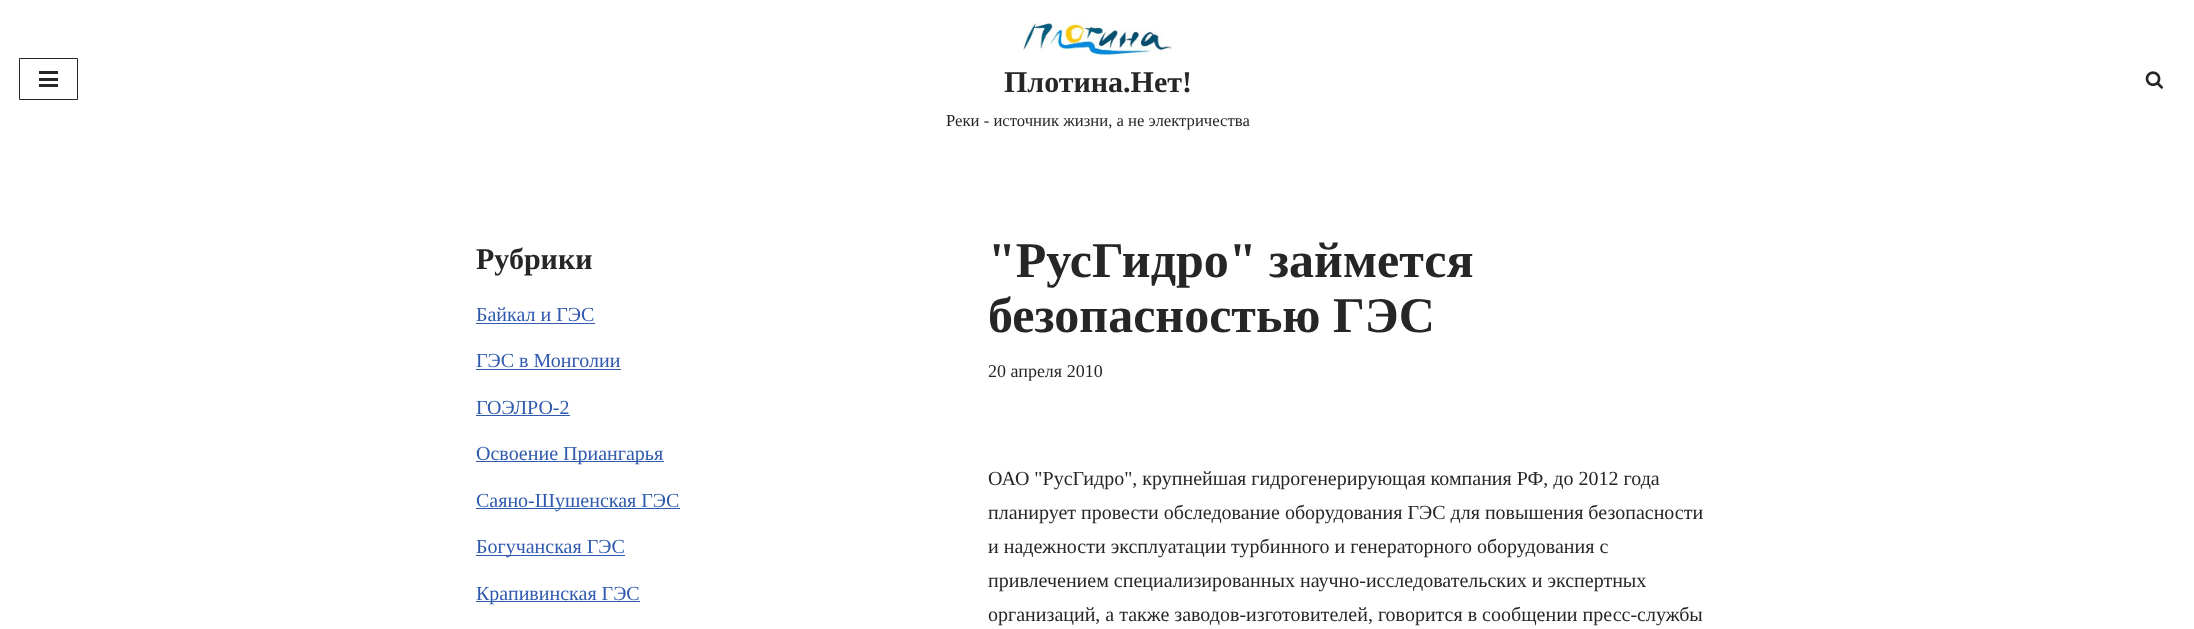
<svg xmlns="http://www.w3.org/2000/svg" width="2194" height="629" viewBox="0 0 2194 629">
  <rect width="100%" height="100%" fill="#fff"/>
  <path d="M19.5 58.5h58v41H19.5z" fill="none" stroke="#272626"/>
  <path d="M39 71h19v3H39z" fill="#272626"/>
  <path d="M39 78h19v3H39z" fill="#272626"/>
  <path d="M39 84h19v3H39z" fill="#272626"/>
  <image x="1022" y="22" width="150" height="34" href="img/1.png"/>
  <image x="2145" y="71" width="19" height="18" href="img/2.png"/>
  <path d="M476 323h119v1H476z" fill="#2f5aae"/>
  <path d="M476 369h145v1H476z" fill="#2f5aae"/>
  <path d="M476 415h94v1H476z" fill="#2f5aae"/>
  <path d="M476 461h188v1H476z" fill="#2f5aae"/>
  <path d="M476 508h204v1H476z" fill="#2f5aae"/>
  <path d="M476 555h149v1H476z" fill="#2f5aae"/>
  <path d="M476 601h164v1H476z" fill="#2f5aae"/>
  <text x="1004" y="92" font-family="Liberation Serif" font-size="30" font-weight="bold" fill="#272626">Плотина.Нет!</text>
  <text x="946" y="126" font-family="Liberation Serif" font-size="16.7" fill="#272626">Реки - источник жизни, а не электричества</text>
  <text x="476" y="269" font-family="Liberation Serif" font-size="30" font-weight="bold" fill="#272626">Рубрики</text>
  <g font-family="Liberation Serif" font-size="20" fill="#2f5aae">
    <text x="476" y="321">Байкал и ГЭС</text>
    <text x="476" y="367">ГЭС в Монголии</text>
    <text x="476" y="414">ГОЭЛРО-2</text>
    <text x="476" y="460">Освоение Приангарья</text>
    <text x="476" y="507">Саяно-Шушенская ГЭС</text>
    <text x="476" y="553">Богучанская ГЭС</text>
    <text x="476" y="600">Крапивинская ГЭС</text>
  </g>
  <g font-family="Liberation Serif" font-size="50" font-weight="bold" fill="#272626">
    <text x="988" y="277">"РусГидро" займется</text>
    <text x="988" y="332">безопасностью ГЭС</text>
  </g>
  <text x="988" y="377" font-family="Liberation Serif" font-size="18" fill="#272626">20 апреля 2010</text>
  <g font-family="Liberation Serif" font-size="20" fill="#272626">
    <text x="988" y="485">ОАО "РусГидро", крупнейшая гидрогенерирующая компания РФ, до 2012 года</text>
    <text x="988" y="519">планирует провести обследование оборудования ГЭС для повышения безопасности</text>
    <text x="988" y="553">и надежности эксплуатации турбинного и генераторного оборудования с</text>
    <text x="988" y="587">привлечением специализированных научно-исследовательских и экспертных</text>
    <text x="988" y="621">организаций, а также заводов-изготовителей, говорится в сообщении пресс-службы</text>
  </g>
</svg>
